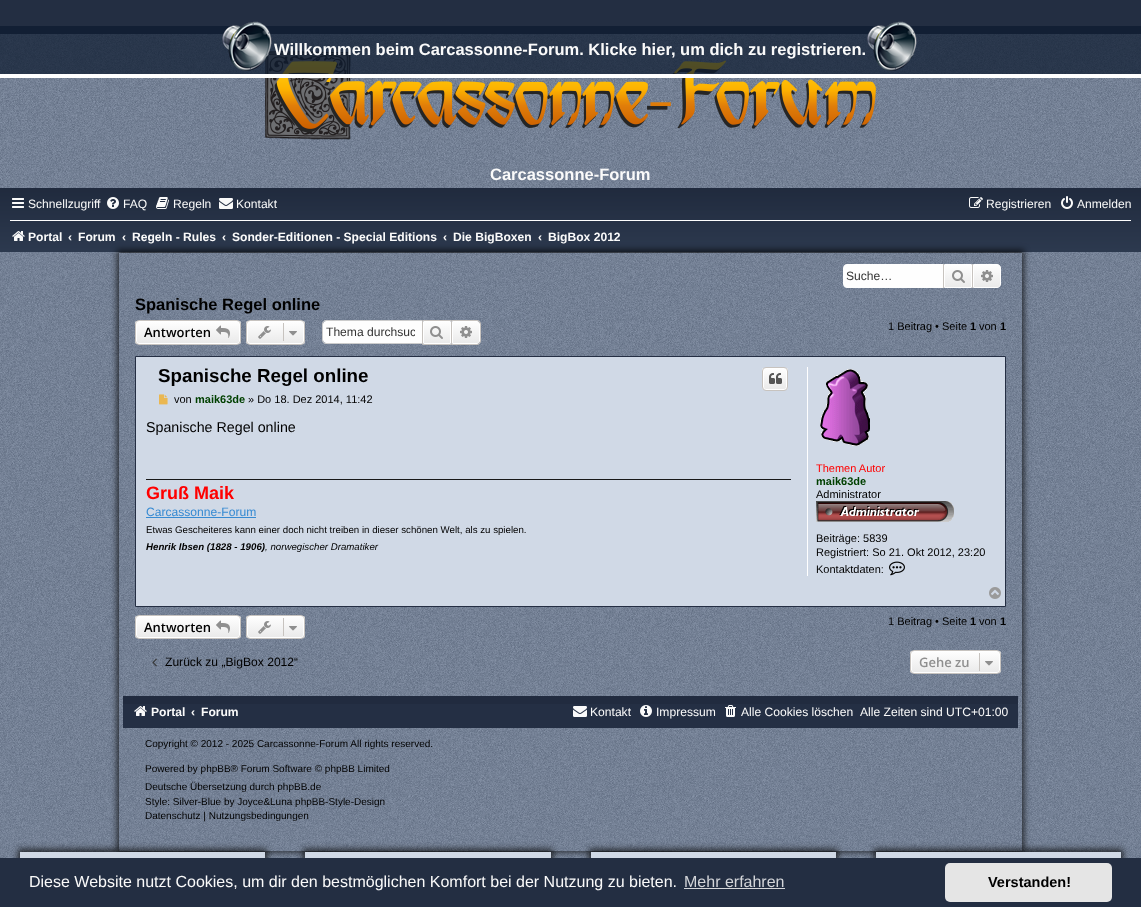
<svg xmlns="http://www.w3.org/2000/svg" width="1141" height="907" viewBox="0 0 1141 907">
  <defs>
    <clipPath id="clip1"><path d="M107 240H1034V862H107ZM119 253H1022V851H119Z" clip-rule="evenodd"/></clipPath>
    <linearGradient id="g1" gradientUnits="userSpaceOnUse" x1="958" y1="264" x2="958" y2="288"><stop offset="0" stop-color="#fff"/><stop offset="1" stop-color="#e9e9e9"/></linearGradient>
    <linearGradient id="g2" gradientUnits="userSpaceOnUse" x1="987" y1="264" x2="987" y2="288"><stop offset="0" stop-color="#fff"/><stop offset="1" stop-color="#e9e9e9"/></linearGradient>
    <clipPath id="clip2"><rect x="135" y="320" width="106" height="25" rx="4"/></clipPath>
    <linearGradient id="g3" gradientUnits="userSpaceOnUse" x1="188" y1="321" x2="188" y2="344"><stop offset="0" stop-color="#fff"/><stop offset="1" stop-color="#e9e9e9"/></linearGradient>
    <clipPath id="clip3"><rect x="246" y="320" width="59" height="25" rx="4"/></clipPath>
    <linearGradient id="g4" gradientUnits="userSpaceOnUse" x1="276" y1="321" x2="276" y2="344"><stop offset="0" stop-color="#fff"/><stop offset="1" stop-color="#e9e9e9"/></linearGradient>
    <linearGradient id="g5" gradientUnits="userSpaceOnUse" x1="437" y1="321" x2="437" y2="344"><stop offset="0" stop-color="#fff"/><stop offset="1" stop-color="#e9e9e9"/></linearGradient>
    <linearGradient id="g6" gradientUnits="userSpaceOnUse" x1="466" y1="321" x2="466" y2="344"><stop offset="0" stop-color="#fff"/><stop offset="1" stop-color="#e9e9e9"/></linearGradient>
    <clipPath id="clip4"><rect x="762" y="367" width="26" height="24" rx="4"/></clipPath>
    <linearGradient id="g7" gradientUnits="userSpaceOnUse" x1="775" y1="368" x2="775" y2="390"><stop offset="0" stop-color="#fff"/><stop offset="1" stop-color="#e9e9e9"/></linearGradient>
    <clipPath id="clip5"><rect x="135" y="615" width="106" height="24" rx="4"/></clipPath>
    <linearGradient id="g8" gradientUnits="userSpaceOnUse" x1="188" y1="616" x2="188" y2="638"><stop offset="0" stop-color="#fff"/><stop offset="1" stop-color="#e9e9e9"/></linearGradient>
    <clipPath id="clip6"><rect x="246" y="615" width="59" height="24" rx="4"/></clipPath>
    <linearGradient id="g9" gradientUnits="userSpaceOnUse" x1="276" y1="616" x2="276" y2="638"><stop offset="0" stop-color="#fff"/><stop offset="1" stop-color="#e9e9e9"/></linearGradient>
    <clipPath id="clip7"><rect x="910" y="650" width="91" height="24" rx="4"/></clipPath>
    <linearGradient id="g10" gradientUnits="userSpaceOnUse" x1="956" y1="651" x2="956" y2="673"><stop offset="0" stop-color="#fff"/><stop offset="1" stop-color="#e9e9e9"/></linearGradient>
    <clipPath id="clip8"><path d="M326 325h89v14H326z"/></clipPath>
  </defs>
  <rect width="100%" height="100%" fill="#fff"/>
  <image x="0" y="252" width="1141" height="606" href="img/1.png"/>
  <path d="M0 0h1141v34H0z" fill="#232e42"/>
  <image x="0" y="34" width="1141" height="154" href="img/5.png"/>
  <image x="265" y="51" width="611" height="89" href="img/6.png"/>
  <path d="M0 26h1141v48H0z" fill="#0c1a2fb8"/>
  <path d="M0 74h1141v4H0z" fill="#fff"/>
  <image x="222" y="21" width="50" height="50" href="img/2.png"/>
  <image x="867" y="21" width="50" height="50" href="img/3.png"/>
  <image x="12" y="252" width="1117" height="599" href="img/4.png"/>
  <image x="0" y="188" width="1141" height="64" href="img/7.png"/>
  <image x="12" y="198" width="12" height="10" href="img/8.png"/>
  <image x="107" y="197" width="12" height="12" href="img/9.png"/>
  <image x="156" y="197" width="13" height="12" href="img/10.png"/>
  <image x="219" y="198" width="14" height="11" href="img/11.png"/>
  <image x="969" y="197" width="14" height="11" href="img/12.png"/>
  <image x="1061" y="196" width="12" height="13" href="img/13.png"/>
  <path d="M10 220h1121v1H10z" fill="#fff"/>
  <image x="12" y="231" width="13" height="10" href="img/14.png"/>
  <g clip-path="url(#clip1)">
    <path d="M117 250h907v602H117z" fill="#020202b3" filter="blur(3px)"/>
  </g>
  <path d="M847 264H943V288H847C845 288 843 286 843 284V268C843 266 845 264 847 264Z" fill="#fefefe"/>
  <path d="M945 265h26v22H945z" fill="url(#g1)"/>
  <path d="M944.5 264.5h27v23H944.5z" fill="none" stroke="#fff"/>
  <path d="M972 264h1v24H972z" fill="#c7c3bf"/>
  <path d="M943 264h1v24H943z" fill="#c7c3bf"/>
  <image x="952" y="270" width="13" height="13" href="img/15.png"/>
  <path d="M973.5 264.5H997C999 264.5 1000.5 266 1000.5 268V284C1000.5 286 999 287.5 997 287.5H973.5Z" fill="url(#g2)" stroke="#fff"/>
  <image x="981" y="270" width="12" height="12" href="img/16.png"/>
  <image x="135" y="295" width="871" height="401" href="img/17.png"/>
  <g clip-path="url(#clip2)">
    <path d="M135 321h106v23H135z" fill="url(#g3)"/>
  </g>
  <rect x="136.5" y="321.5" width="103" height="22" rx="2.5" fill="none" stroke="#fff"/>
  <rect x="135.5" y="320.5" width="105" height="24" rx="3.5" fill="none" stroke="#c7c3bf"/>
  <image x="216" y="325" width="14" height="13" href="img/18.png"/>
  <g clip-path="url(#clip3)">
    <path d="M246 321h59v23H246z" fill="url(#g4)"/>
  </g>
  <rect x="247.5" y="321.5" width="56" height="22" rx="2.5" fill="none" stroke="#fff"/>
  <rect x="246.5" y="320.5" width="58" height="24" rx="3.5" fill="none" stroke="#c7c3bf"/>
  <image x="258" y="326" width="13" height="13" href="img/19.png"/>
  <path d="M283 323h1v18H283z" fill="#c7c3bf"/>
  <image x="289" y="331" width="8" height="5" href="img/20.png"/>
  <path d="M326 321H422V343H326C324.5 343 323 341.5 323 340V324C323 322.5 324.5 321 326 321Z" fill="#fefefe"/>
  <path d="M326 320H422V344H326C324 344 322 342 322 340V324C322 322 324 320 326 320ZM326 321H422V343H326C324 343 323 342 323 340V324C323 322 324 321 326 321Z" fill="#ccc" fill-rule="evenodd"/>
  <path d="M424 322h26v21H424z" fill="url(#g5)"/>
  <path d="M423.5 321.5h27v22H423.5z" fill="none" stroke="#fff"/>
  <path d="M422.5 320.5h29v24H422.5z" fill="none" stroke="#c7c3bf"/>
  <image x="430" y="326" width="13" height="13" href="img/21.png"/>
  <path d="M452.5 321.5H477C478.5 321.5 479.5 322.5 479.5 324V341C479.5 342.5 478.5 343.5 477 343.5H452.5Z" fill="url(#g6)" stroke="#fff"/>
  <path d="M452 320H477C479 320 481 322 481 324V341C481 343 479 345 477 345H452ZM452 321H477C478.5 321 480 322.5 480 324V341C480 342.5 478.5 344 477 344H452Z" fill="#c7c3bf" fill-rule="evenodd"/>
  <image x="460" y="326" width="12" height="12" href="img/22.png"/>
  <path d="M135.5 356.5h870v250H135.5z" fill="#d0d9e6" stroke="#242e43"/>
  <g clip-path="url(#clip4)">
    <path d="M762 368h26v22H762z" fill="url(#g7)"/>
  </g>
  <rect x="763.5" y="368.5" width="23" height="21" rx="2.5" fill="none" stroke="#fff"/>
  <rect x="762.5" y="367.5" width="25" height="23" rx="3.5" fill="none" stroke="#c7c3bf"/>
  <image x="769" y="373" width="13" height="11" href="img/23.png"/>
  <image x="159" y="394" width="9" height="11" href="img/24.png"/>
  <path d="M146 479h645v1H146z" fill="#181818"/>
  <path d="M146 517h110v1H146z" fill="#368ad2"/>
  <path d="M807 367h1v209H807z" fill="#fff"/>
  <image x="820" y="369" width="50" height="77" href="img/25.png"/>
  <image x="816" y="501" width="138" height="21" href="img/26.png"/>
  <image x="889" y="561" width="16" height="15" href="img/27.png"/>
  <image x="989" y="587" width="12" height="12" href="img/28.png"/>
  <g clip-path="url(#clip5)">
    <path d="M135 616h106v22H135z" fill="url(#g8)"/>
  </g>
  <rect x="136.5" y="616.5" width="103" height="21" rx="2.5" fill="none" stroke="#fff"/>
  <rect x="135.5" y="615.5" width="105" height="23" rx="3.5" fill="none" stroke="#c7c3bf"/>
  <image x="216" y="620" width="14" height="13" href="img/18.png"/>
  <g clip-path="url(#clip6)">
    <path d="M246 616h59v22H246z" fill="url(#g9)"/>
  </g>
  <rect x="247.5" y="616.5" width="56" height="21" rx="2.5" fill="none" stroke="#fff"/>
  <rect x="246.5" y="615.5" width="58" height="23" rx="3.5" fill="none" stroke="#c7c3bf"/>
  <image x="258" y="621" width="13" height="13" href="img/19.png"/>
  <path d="M283 618h1v18H283z" fill="#c7c3bf"/>
  <image x="289" y="626" width="8" height="5" href="img/20.png"/>
  <image x="152" y="658" width="5" height="9" href="img/29.png"/>
  <g clip-path="url(#clip7)">
    <path d="M910 651h91v22H910z" fill="url(#g10)"/>
  </g>
  <rect x="911.5" y="651.5" width="88" height="21" rx="2.5" fill="none" stroke="#fff"/>
  <rect x="910.5" y="650.5" width="90" height="23" rx="3.5" fill="none" stroke="#c7c3bf"/>
  <path d="M979 653h1v18H979z" fill="#c7c3bf"/>
  <image x="985" y="661" width="8" height="5" href="img/20.png"/>
  <path d="M123 704h895v24H123z" fill="#242f44"/>
  <path d="M123 696h895v8H123z" fill="#212b3f"/>
  <image x="134" y="706" width="13" height="10" href="img/30.png"/>
  <image x="573" y="706" width="14" height="11" href="img/31.png"/>
  <image x="640" y="705" width="12" height="12" href="img/32.png"/>
  <image x="725" y="705" width="11" height="12" href="img/33.png"/>
  <path d="M18 849h249v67H18z" fill="#020202b3" filter="blur(3px)"/>
  <path d="M20 852h245v6H20z" fill="#d0d9e6"/>
  <path d="M303 849h250v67H303z" fill="#020202b3" filter="blur(3px)"/>
  <path d="M305 852h246v6H305z" fill="#d0d9e6"/>
  <path d="M589 849h249v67H589z" fill="#020202b3" filter="blur(3px)"/>
  <path d="M591 852h245v6H591z" fill="#d0d9e6"/>
  <path d="M874 849h249v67H874z" fill="#020202b3" filter="blur(3px)"/>
  <path d="M876 852h245v6H876z" fill="#d0d9e6"/>
  <path d="M0 858h1141v49H0z" fill="#232e42"/>
  <path d="M684 888h101v1H684z" fill="#d3d5d9"/>
  <rect x="945" y="863" width="167" height="39" rx="5" fill="#e5e5e5"/>
  <g font-family="Liberation Sans" font-size="16.5" font-weight="bold" fill="#fafafa">
    <text x="274" y="55">Willkommen beim Carcassonne-Forum. Klicke hier, um dich zu registrieren.</text>
    <text x="490" y="180">Carcassonne-Forum</text>
  </g>
  <g font-family="Liberation Sans" font-size="12.1" fill="#fafafa">
    <text x="28" y="208">Schnellzugriff</text>
    <text x="123" y="208">FAQ</text>
    <text x="173" y="208">Regeln</text>
    <text x="236" y="208">Kontakt</text>
    <text x="986" y="208">Registrieren</text>
    <text x="1077" y="208">Anmelden</text>
  </g>
  <g font-family="Liberation Sans" font-size="12.1" font-weight="bold" fill="#fafafa">
    <text x="28" y="241">Portal</text>
    <text x="68" y="241">‹</text>
    <text x="78" y="241">Forum</text>
    <text x="122" y="241">‹</text>
    <text x="132" y="241">Regeln - Rules</text>
    <text x="222" y="241">‹</text>
    <text x="232" y="241">Sonder-Editionen - Special Editions</text>
    <text x="443" y="241">‹</text>
    <text x="453" y="241">Die BigBoxen</text>
    <text x="538" y="241">‹</text>
    <text x="548" y="241">BigBox 2012</text>
  </g>
  <text x="846" y="280" font-family="Liberation Sans" font-size="12.1" fill="#333">Suche…</text>
  <text x="135" y="310" font-family="Liberation Sans" font-size="16.5" font-weight="bold" fill="#000">Spanische Regel online</text>
  <text x="144" y="337" font-family="Open Sans" font-size="13" font-weight="600" fill="#000">Antworten</text>
  <g clip-path="url(#clip8)">
    <text x="326" y="336" font-family="Liberation Sans" font-size="12.1" fill="#333">Thema durchsuc</text>
  </g>
  <text x="888" y="330" font-family="Liberation Sans" font-size="11" fill="#000">1 Beitrag • Seite</text>
  <text x="970" y="330" font-family="Liberation Sans" font-size="11" font-weight="bold" fill="#000">1</text>
  <text x="979" y="330" font-family="Liberation Sans" font-size="11" fill="#000">von</text>
  <text x="1000" y="330" font-family="Liberation Sans" font-size="11" font-weight="bold" fill="#000">1</text>
  <text x="158" y="382" font-family="Liberation Sans" font-size="18.75" font-weight="bold" fill="#000">Spanische Regel online</text>
  <text x="174" y="403" font-family="Liberation Sans" font-size="11" fill="#000">von</text>
  <text x="195" y="403" font-family="Liberation Sans" font-size="11" font-weight="bold" fill="#004000">maik63de</text>
  <text x="248" y="403" font-family="Liberation Sans" font-size="11" fill="#000">» Do 18. Dez 2014, 11:42</text>
  <text x="146" y="432" font-family="Liberation Sans" font-size="14.25" fill="#000">Spanische Regel online</text>
  <text x="146" y="499" font-family="Liberation Sans" font-size="18" font-weight="bold" fill="#f00">Gruß Maik</text>
  <text x="146" y="516" font-family="Liberation Sans" font-size="12.1" fill="#368ad2">Carcassonne-Forum</text>
  <text x="146" y="533" font-family="Liberation Sans" font-size="9.7" fill="#000">Etwas Gescheiteres kann einer doch nicht treiben in dieser schönen Welt, als zu spielen.</text>
  <text x="146" y="550" font-family="Liberation Sans" font-size="9.7" font-weight="bold" font-style="italic" fill="#000">Henrik Ibsen (1828 - 1906)</text>
  <text x="265" y="550" font-family="Liberation Sans" font-size="9.7" font-style="italic" fill="#000">, norwegischer Dramatiker</text>
  <text x="816" y="472" font-family="Liberation Sans" font-size="11" fill="#f00">Themen Autor</text>
  <text x="816" y="485" font-family="Liberation Sans" font-size="11" font-weight="bold" fill="#004000">maik63de</text>
  <g font-family="Liberation Sans" font-size="11" fill="#000">
    <text x="816" y="498">Administrator</text>
    <text x="816" y="542">Beiträge: 5839</text>
    <text x="816" y="556">Registriert: So 21. Okt 2012, 23:20</text>
    <text x="816" y="573">Kontaktdaten:</text>
  </g>
  <text x="144" y="632" font-family="Open Sans" font-size="13" font-weight="600" fill="#000">Antworten</text>
  <text x="888" y="625" font-family="Liberation Sans" font-size="11" fill="#000">1 Beitrag • Seite</text>
  <text x="970" y="625" font-family="Liberation Sans" font-size="11" font-weight="bold" fill="#000">1</text>
  <text x="979" y="625" font-family="Liberation Sans" font-size="11" fill="#000">von</text>
  <text x="1000" y="625" font-family="Liberation Sans" font-size="11" font-weight="bold" fill="#000">1</text>
  <text x="165" y="666" font-family="Liberation Sans" font-size="12.1" fill="#000">Zurück zu „BigBox 2012“</text>
  <text x="919" y="667" font-family="Open Sans" font-size="13" font-weight="600" fill="#8f8f8f">Gehe zu</text>
  <g font-family="Liberation Sans" font-size="12.1" font-weight="bold" fill="#fafafa">
    <text x="151" y="716">Portal</text>
    <text x="191" y="716">‹</text>
    <text x="201" y="716">Forum</text>
  </g>
  <g font-family="Liberation Sans" font-size="12.1" fill="#fafafa">
    <text x="590" y="716">Kontakt</text>
    <text x="656" y="716">Impressum</text>
    <text x="741" y="716">Alle Cookies löschen</text>
    <text x="860" y="716">Alle Zeiten sind UTC+01:00</text>
  </g>
  <g font-family="Liberation Sans" font-size="10" fill="#000">
    <text x="145" y="747">Copyright © 2012 - 2025 Carcassonne-Forum All rights reserved.</text>
    <text x="145" y="772">Powered by phpBB® Forum Software © phpBB Limited</text>
    <text x="145" y="790">Deutsche Übersetzung durch phpBB.de</text>
    <text x="145" y="805">Style: Silver-Blue by Joyce&amp;Luna phpBB-Style-Design</text>
    <text x="145" y="819">Datenschutz | Nutzungsbedingungen</text>
  </g>
  <text x="29" y="887" font-family="Liberation Sans" font-size="16" fill="#fafafa">Diese Website nutzt Cookies, um dir den bestmöglichen Komfort bei der Nutzung zu bieten.</text>
  <text x="684" y="887" font-family="Liberation Sans" font-size="16" fill="#d3d5d9">Mehr erfahren</text>
  <text x="988" y="887" font-family="Liberation Sans" font-size="14.5" font-weight="bold" fill="#000">Verstanden!</text>
</svg>
